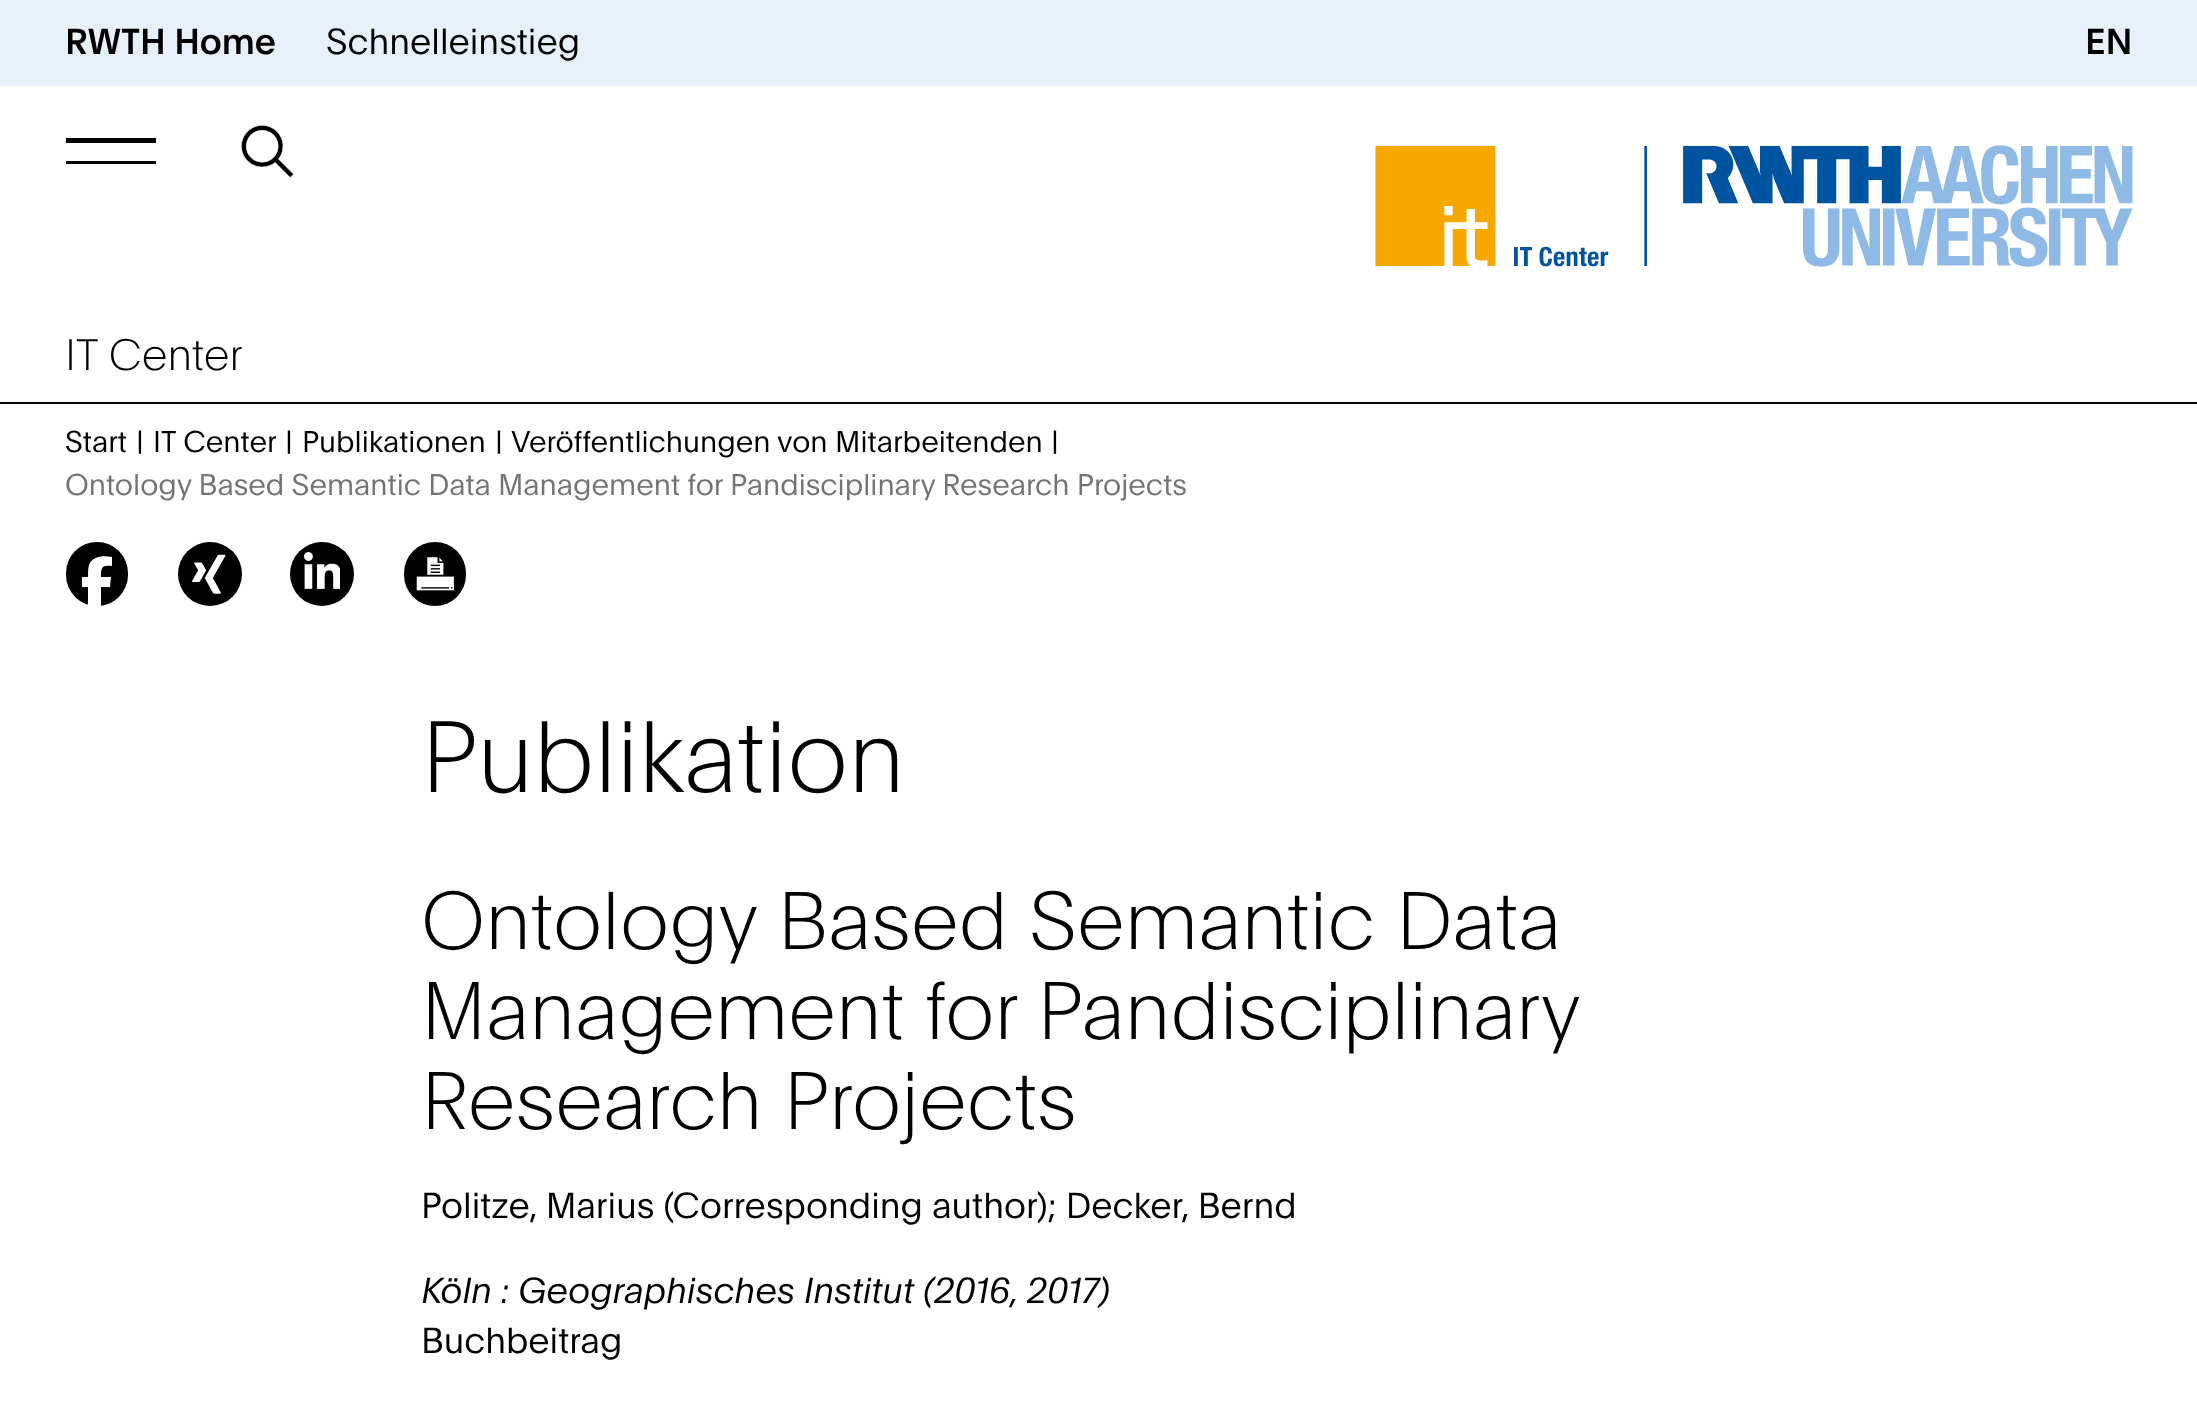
<svg xmlns="http://www.w3.org/2000/svg" width="2197" height="1406" viewBox="0 0 2197 1406">
  <defs>
    <clipPath id="clip1"><path d="M66 138h90v26H66z"/></clipPath>
    <clipPath id="clip2"><path d="M80 556h34v52H80z"/></clipPath>
  </defs>
  <rect width="100%" height="100%" fill="#fff"/>
  <path d="M0 402h2197v2H0z" fill="#000"/>
  <path d="M0 0h2197v86H0z" fill="#e8f1fa"/>
  <g clip-path="url(#clip1)">
    <path d="M158 138H66V143H158ZM158 161H66V165H158Z" fill="#000"/>
  </g>
  <image x="241" y="125" width="53" height="53" href="img/1.png"/>
  <image x="1375" y="145" width="758" height="122" href="img/2.png"/>
  <rect x="66" y="542" width="62" height="64" rx="31" fill="#000"/>
  <g clip-path="url(#clip2)">
    <path d="M88 587V609H101V587H110L111 577H101C101 567 102 565 112 566V557C104 555 92 556 89 565C88 569 88 573 88 577H82V587Z" fill="#fff"/>
  </g>
  <circle cx="210" cy="574" r="32" fill="#000"/>
  <image x="192" y="554" width="34" height="40" href="img/3.png"/>
  <circle cx="322" cy="574" r="32" fill="#000"/>
  <image x="304" y="552" width="36" height="37" href="img/4.png"/>
  <rect x="404" y="542" width="62" height="64" rx="31" fill="#000"/>
  <image x="416" y="557" width="38" height="34" href="img/5.png"/>
  <text x="65" y="54" font-family="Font" font-size="35.5" font-weight="500" fill="#000">RWTH Home</text>
  <text x="326" y="54" font-family="Font" font-size="35.5" font-weight="300" fill="#000">Schnelleinstieg</text>
  <text x="2085" y="54" font-family="Font" font-size="35.5" font-weight="500" fill="#000">EN</text>
  <text x="65" y="370" font-family="'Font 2'" font-size="43" font-weight="300" fill="#000">IT Center</text>
  <g font-family="Font" font-size="29.35" font-weight="300" fill="#000">
    <text x="65" y="452">Start</text>
    <text x="136" y="452">|</text>
    <text x="153" y="452">IT Center</text>
    <text x="285" y="452">|</text>
    <text x="302" y="452">Publikationen</text>
    <text x="495" y="452">|</text>
    <text x="511" y="452">Veröffentlichungen von Mitarbeitenden</text>
    <text x="1051" y="452">|</text>
  </g>
  <text x="65" y="495" word-spacing="-0.25" font-family="Font" font-size="29.35" font-weight="300" fill="#737373">Ontology Based Semantic Data Management for Pandisciplinary Research Projects</text>
  <text x="421" y="792" font-family="'Font 2'" font-size="99" font-weight="300" fill="#000">Publikation</text>
  <g font-family="'Font 2'" font-size="79.9" font-weight="300" fill="#000">
    <text x="421" y="949">Ontology Based Semantic Data</text>
    <text x="421" y="1039" word-spacing="-1">Management for Pandisciplinary</text>
    <text x="421" y="1129">Research Projects</text>
  </g>
  <text x="421" y="1218" font-family="Font" font-size="35.5" font-weight="300" fill="#000">Politze, Marius (Corresponding author); Decker, Bernd</text>
  <text x="421" y="1303" font-family="Font" font-size="35.5" font-weight="300" font-style="italic" fill="#000">Köln : Geographisches Institut (2016, 2017)</text>
  <text x="421" y="1353" font-family="Font" font-size="35.5" font-weight="300" fill="#000">Buchbeitrag</text>
</svg>
